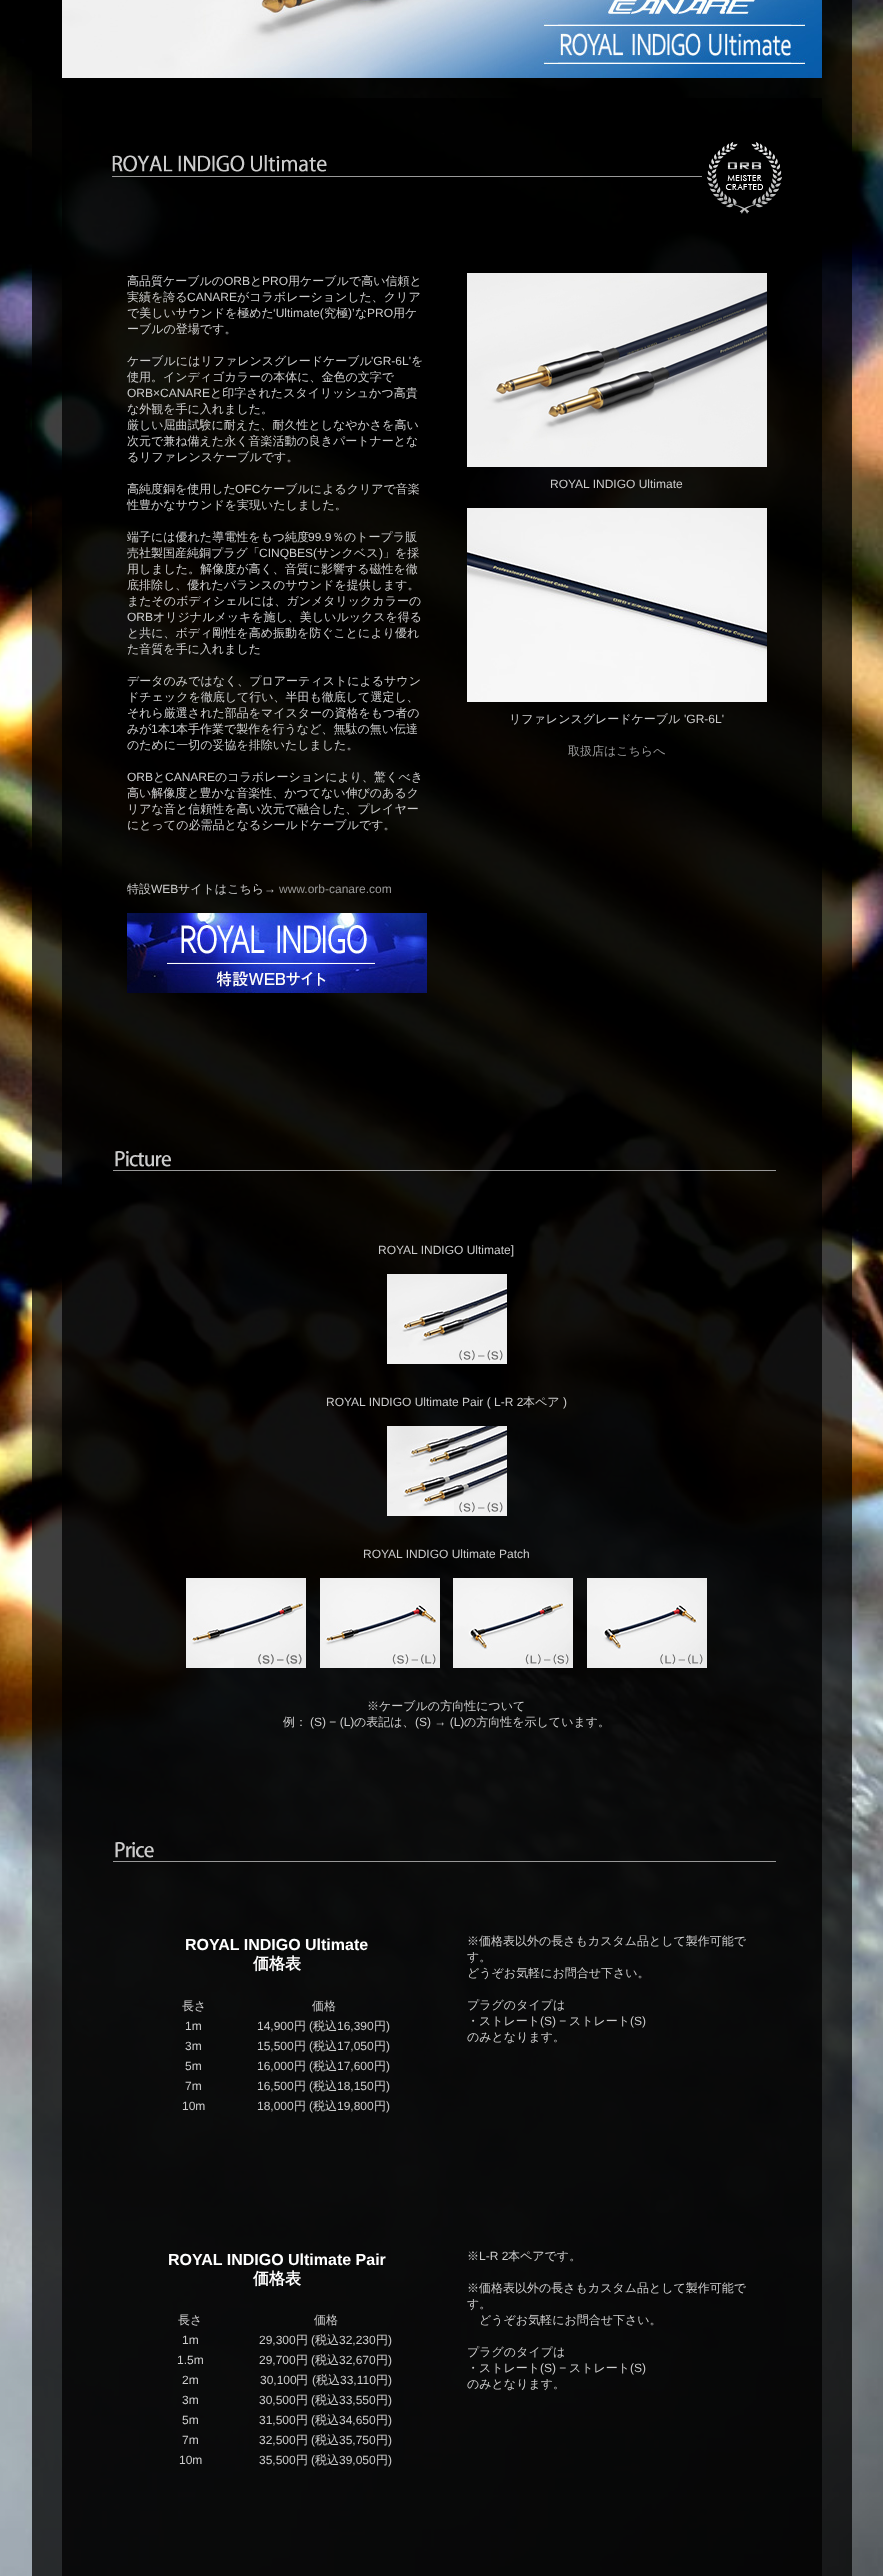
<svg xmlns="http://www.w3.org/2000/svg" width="883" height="2576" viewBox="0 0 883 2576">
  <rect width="100%" height="100%" fill="#fff"/>
  <image x="0" y="0" width="883" height="2576" href="img/1.png"/>
  <image x="62" y="0" width="760" height="78" href="img/2.png"/>
  <path d="M62 98h760v2478H62z" fill="#000000bf"/>
  <image x="112" y="155" width="590" height="22" href="img/3.png"/>
  <image x="707" y="142" width="75" height="72" href="img/4.png"/>
  <image x="127" y="913" width="300" height="80" href="img/5.png"/>
  <image x="467" y="273" width="300" height="194" href="img/6.png"/>
  <image x="467" y="508" width="300" height="194" href="img/7.png"/>
  <image x="113" y="1151" width="663" height="20" href="img/8.png"/>
  <image x="387" y="1274" width="120" height="90" href="img/9.png"/>
  <image x="387" y="1426" width="120" height="90" href="img/10.png"/>
  <image x="186" y="1578" width="120" height="90" href="img/11.png"/>
  <image x="320" y="1578" width="120" height="90" href="img/12.png"/>
  <image x="453" y="1578" width="120" height="90" href="img/13.png"/>
  <image x="587" y="1578" width="120" height="90" href="img/14.png"/>
  <image x="113" y="1842" width="663" height="20" href="img/15.png"/>
  <text x="127" y="285" font-family="WenQuanYi Zen Hei" font-size="12" font-weight="500" fill="#ccc">高品質ケーブルの</text>
  <text x="224" y="285" font-family="Liberation Sans" font-size="12" fill="#ccc">ORB</text>
  <text x="250" y="285" font-family="WenQuanYi Zen Hei" font-size="12" font-weight="500" fill="#ccc">と</text>
  <text x="262" y="285" font-family="Liberation Sans" font-size="12" fill="#ccc">PRO</text>
  <g font-family="WenQuanYi Zen Hei" font-size="12" font-weight="500" fill="#ccc">
    <text x="288" y="285">用ケーブルで高い信頼と</text>
    <text x="127" y="301">実績を誇る</text>
  </g>
  <text x="187" y="301" font-family="Liberation Sans" font-size="12" fill="#ccc">CANARE</text>
  <g font-family="WenQuanYi Zen Hei" font-size="12" font-weight="500" fill="#ccc">
    <text x="237" y="301">がコラボレーションした、クリア</text>
    <text x="127" y="317">で美しいサウンドを極めた</text>
  </g>
  <text x="273" y="317" font-family="Liberation Sans" font-size="12" fill="#ccc">‘Ultimate(</text>
  <text x="324" y="317" font-family="WenQuanYi Zen Hei" font-size="12" font-weight="500" fill="#ccc">究極</text>
  <text x="348" y="317" font-family="Liberation Sans" font-size="12" fill="#ccc">)’</text>
  <text x="355" y="317" font-family="WenQuanYi Zen Hei" font-size="12" font-weight="500" fill="#ccc">な</text>
  <text x="367" y="317" font-family="Liberation Sans" font-size="12" fill="#ccc">PRO</text>
  <g font-family="WenQuanYi Zen Hei" font-size="12" font-weight="500" fill="#ccc">
    <text x="393" y="317">用ケ</text>
    <text x="127" y="333">ーブルの登場です。</text>
    <text x="127" y="365">ケーブルにはリファレンスグレードケーブル</text>
  </g>
  <text x="371" y="365" font-family="Liberation Sans" font-size="12" fill="#ccc">'GR-6L'</text>
  <g font-family="WenQuanYi Zen Hei" font-size="12" font-weight="500" fill="#ccc">
    <text x="411" y="365">を</text>
    <text x="127" y="381">使用。インディゴカラーの本体に、金色の文字で</text>
  </g>
  <text x="127" y="397" font-family="Liberation Sans" font-size="12" fill="#ccc">ORB×CANARE</text>
  <g font-family="WenQuanYi Zen Hei" font-size="12" font-weight="500" fill="#ccc">
    <text x="210" y="397">と印字されたスタイリッシュかつ高貴</text>
    <text x="127" y="413">な外観を手に入れました。</text>
    <text x="127" y="429">厳しい屈曲試験に耐えた、耐久性としなやかさを高い</text>
    <text x="127" y="445">次元で兼ね備えた永く音楽活動の良きパートナーとな</text>
    <text x="127" y="461">るリファレンスケーブルです。</text>
    <text x="127" y="493">高純度銅を使用した</text>
  </g>
  <text x="235" y="493" font-family="Liberation Sans" font-size="12" fill="#ccc">OFC</text>
  <g font-family="WenQuanYi Zen Hei" font-size="12" font-weight="500" fill="#ccc">
    <text x="261" y="493">ケーブルによるクリアで音楽</text>
    <text x="127" y="509">性豊かなサウンドを実現いたしました。</text>
    <text x="127" y="541">端子には優れた導電性をもつ純度</text>
  </g>
  <text x="308" y="541" font-family="Liberation Sans" font-size="12" fill="#ccc">99.9</text>
  <g font-family="WenQuanYi Zen Hei" font-size="12" font-weight="500" fill="#ccc">
    <text x="332" y="541">％のトープラ販</text>
    <text x="127" y="557">売社製国産純銅プラグ「</text>
  </g>
  <text x="259" y="557" font-family="Liberation Sans" font-size="12" fill="#ccc">CINQBES(</text>
  <text x="317" y="557" font-family="WenQuanYi Zen Hei" font-size="12" font-weight="500" fill="#ccc">サンクベス</text>
  <text x="379" y="557" font-family="Liberation Sans" font-size="12" fill="#ccc">)</text>
  <g font-family="WenQuanYi Zen Hei" font-size="12" font-weight="500" fill="#ccc">
    <text x="383" y="557">」を採</text>
    <text x="127" y="573">用しました。解像度が高く、音質に影響する磁性を徹</text>
    <text x="127" y="589">底排除し、優れたバランスのサウンドを提供します。</text>
    <text x="127" y="605">またそのボディシェルには、ガンメタリックカラーの</text>
  </g>
  <text x="127" y="621" font-family="Liberation Sans" font-size="12" fill="#ccc">ORB</text>
  <g font-family="WenQuanYi Zen Hei" font-size="12" font-weight="500" fill="#ccc">
    <text x="153" y="621">オリジナルメッキを施し、美しいルックスを得る</text>
    <text x="127" y="637">と共に、ボディ剛性を高め振動を防ぐことにより優れ</text>
    <text x="127" y="653">た音質を手に入れました</text>
    <text x="127" y="685">データのみではなく、プロアーティストによるサウン</text>
    <text x="127" y="701">ドチェックを徹底して行い、半田も徹底して選定し、</text>
    <text x="127" y="717">それら厳選された部品をマイスターの資格をもつ者の</text>
    <text x="127" y="733">みが</text>
  </g>
  <text x="151" y="733" font-family="Liberation Sans" font-size="12" fill="#ccc">1</text>
  <text x="158" y="733" font-family="WenQuanYi Zen Hei" font-size="12" font-weight="500" fill="#ccc">本</text>
  <text x="170" y="733" font-family="Liberation Sans" font-size="12" fill="#ccc">1</text>
  <g font-family="WenQuanYi Zen Hei" font-size="12" font-weight="500" fill="#ccc">
    <text x="176" y="733">本手作業で製作を行うなど、無駄の無い伝達</text>
    <text x="127" y="749">のために一切の妥協を排除いたしました。</text>
  </g>
  <text x="127" y="781" font-family="Liberation Sans" font-size="12" fill="#ccc">ORB</text>
  <text x="153" y="781" font-family="WenQuanYi Zen Hei" font-size="12" font-weight="500" fill="#ccc">と</text>
  <text x="165" y="781" font-family="Liberation Sans" font-size="12" fill="#ccc">CANARE</text>
  <g font-family="WenQuanYi Zen Hei" font-size="12" font-weight="500" fill="#ccc">
    <text x="215" y="781">のコラボレーションにより、驚くべき</text>
    <text x="127" y="797">高い解像度と豊かな音楽性、かつてない伸びのあるク</text>
    <text x="127" y="813">リアな音と信頼性を高い次元で融合した、プレイヤー</text>
    <text x="127" y="829">にとっての必需品となるシールドケーブルです。</text>
    <text x="127" y="893">特設</text>
  </g>
  <text x="151" y="893" font-family="Liberation Sans" font-size="12" fill="#ccc">WEB</text>
  <text x="178" y="893" font-family="WenQuanYi Zen Hei" font-size="12" font-weight="500" fill="#ccc">サイトはこちら</text>
  <text x="264" y="893" font-family="Liberation Sans" font-size="12" fill="#ccc">→</text>
  <text x="279" y="893" font-family="Liberation Sans" font-size="12" fill="#999">www.orb-canare.com</text>
  <text x="550" y="488" font-family="Liberation Sans" font-size="12" fill="#ccc">ROYAL INDIGO Ultimate</text>
  <text x="509" y="723" font-family="WenQuanYi Zen Hei" font-size="12" font-weight="500" fill="#ccc">リファレンスグレードケーブル</text>
  <text x="684" y="723" font-family="Liberation Sans" font-size="12" fill="#ccc">'GR-6L'</text>
  <text x="568" y="755" font-family="WenQuanYi Zen Hei" font-size="12" font-weight="500" fill="#999">取扱店はこちらへ</text>
  <g font-family="Liberation Sans" font-size="12" fill="#ccc">
    <text x="378" y="1254">ROYAL INDIGO Ultimate]</text>
    <text x="326" y="1406">ROYAL INDIGO Ultimate Pair ( L-R 2</text>
  </g>
  <text x="523" y="1406" font-family="WenQuanYi Zen Hei" font-size="12" font-weight="500" fill="#ccc">本ペア</text>
  <g font-family="Liberation Sans" font-size="12" fill="#ccc">
    <text x="563" y="1406">)</text>
    <text x="363" y="1558">ROYAL INDIGO Ultimate Patch</text>
  </g>
  <g font-family="WenQuanYi Zen Hei" font-size="12" font-weight="500" fill="#ccc">
    <text x="367" y="1710">※ケーブルの方向性について</text>
    <text x="283" y="1726">例：</text>
  </g>
  <text x="310" y="1726" font-family="Liberation Sans" font-size="12" fill="#ccc">(S) − (L)</text>
  <text x="354" y="1726" font-family="WenQuanYi Zen Hei" font-size="12" font-weight="500" fill="#ccc">の表記は、</text>
  <text x="415" y="1726" font-family="Liberation Sans" font-size="12" fill="#ccc">(S) → (L)</text>
  <text x="464" y="1726" font-family="WenQuanYi Zen Hei" font-size="12" font-weight="500" fill="#ccc">の方向性を示しています。</text>
  <text x="185" y="1950" font-family="Liberation Sans" font-size="16" font-weight="bold" fill="#fff">ROYAL INDIGO Ultimate</text>
  <text x="253" y="1969" font-family="WenQuanYi Zen Hei" font-size="16" font-weight="bold" fill="#fff">価格表</text>
  <g font-family="WenQuanYi Zen Hei" font-size="12" font-weight="500" fill="#ccc">
    <text x="182" y="2010">長さ</text>
    <text x="312" y="2010">価格</text>
  </g>
  <g font-family="Liberation Sans" font-size="12" fill="#ccc">
    <text x="185" y="2030">1m</text>
    <text x="257" y="2030">14,900</text>
  </g>
  <text x="294" y="2030" font-family="WenQuanYi Zen Hei" font-size="12" font-weight="500" fill="#ccc">円</text>
  <text x="309" y="2030" font-family="Liberation Sans" font-size="12" fill="#ccc">(</text>
  <text x="313" y="2030" font-family="WenQuanYi Zen Hei" font-size="12" font-weight="500" fill="#ccc">税込</text>
  <text x="337" y="2030" font-family="Liberation Sans" font-size="12" fill="#ccc">16,390</text>
  <text x="374" y="2030" font-family="WenQuanYi Zen Hei" font-size="12" font-weight="500" fill="#ccc">円</text>
  <g font-family="Liberation Sans" font-size="12" fill="#ccc">
    <text x="386" y="2030">)</text>
    <text x="185" y="2050">3m</text>
    <text x="257" y="2050">15,500</text>
  </g>
  <text x="294" y="2050" font-family="WenQuanYi Zen Hei" font-size="12" font-weight="500" fill="#ccc">円</text>
  <text x="309" y="2050" font-family="Liberation Sans" font-size="12" fill="#ccc">(</text>
  <text x="313" y="2050" font-family="WenQuanYi Zen Hei" font-size="12" font-weight="500" fill="#ccc">税込</text>
  <text x="337" y="2050" font-family="Liberation Sans" font-size="12" fill="#ccc">17,050</text>
  <text x="374" y="2050" font-family="WenQuanYi Zen Hei" font-size="12" font-weight="500" fill="#ccc">円</text>
  <g font-family="Liberation Sans" font-size="12" fill="#ccc">
    <text x="386" y="2050">)</text>
    <text x="185" y="2070">5m</text>
    <text x="257" y="2070">16,000</text>
  </g>
  <text x="294" y="2070" font-family="WenQuanYi Zen Hei" font-size="12" font-weight="500" fill="#ccc">円</text>
  <text x="309" y="2070" font-family="Liberation Sans" font-size="12" fill="#ccc">(</text>
  <text x="313" y="2070" font-family="WenQuanYi Zen Hei" font-size="12" font-weight="500" fill="#ccc">税込</text>
  <text x="337" y="2070" font-family="Liberation Sans" font-size="12" fill="#ccc">17,600</text>
  <text x="374" y="2070" font-family="WenQuanYi Zen Hei" font-size="12" font-weight="500" fill="#ccc">円</text>
  <g font-family="Liberation Sans" font-size="12" fill="#ccc">
    <text x="386" y="2070">)</text>
    <text x="185" y="2090">7m</text>
    <text x="257" y="2090">16,500</text>
  </g>
  <text x="294" y="2090" font-family="WenQuanYi Zen Hei" font-size="12" font-weight="500" fill="#ccc">円</text>
  <text x="309" y="2090" font-family="Liberation Sans" font-size="12" fill="#ccc">(</text>
  <text x="313" y="2090" font-family="WenQuanYi Zen Hei" font-size="12" font-weight="500" fill="#ccc">税込</text>
  <text x="337" y="2090" font-family="Liberation Sans" font-size="12" fill="#ccc">18,150</text>
  <text x="374" y="2090" font-family="WenQuanYi Zen Hei" font-size="12" font-weight="500" fill="#ccc">円</text>
  <g font-family="Liberation Sans" font-size="12" fill="#ccc">
    <text x="386" y="2090">)</text>
    <text x="182" y="2110">10m</text>
    <text x="257" y="2110">18,000</text>
  </g>
  <text x="294" y="2110" font-family="WenQuanYi Zen Hei" font-size="12" font-weight="500" fill="#ccc">円</text>
  <text x="309" y="2110" font-family="Liberation Sans" font-size="12" fill="#ccc">(</text>
  <text x="313" y="2110" font-family="WenQuanYi Zen Hei" font-size="12" font-weight="500" fill="#ccc">税込</text>
  <text x="337" y="2110" font-family="Liberation Sans" font-size="12" fill="#ccc">19,800</text>
  <text x="374" y="2110" font-family="WenQuanYi Zen Hei" font-size="12" font-weight="500" fill="#ccc">円</text>
  <text x="386" y="2110" font-family="Liberation Sans" font-size="12" fill="#ccc">)</text>
  <g font-family="WenQuanYi Zen Hei" font-size="12" font-weight="500" fill="#ccc">
    <text x="467" y="1945">※価格表以外の長さもカスタム品として製作可能で</text>
    <text x="467" y="1961">す。</text>
    <text x="467" y="1977">どうぞお気軽にお問合せ下さい。</text>
    <text x="467" y="2009">プラグのタイプは</text>
    <text x="467" y="2025">・ストレート</text>
  </g>
  <text x="540" y="2025" font-family="Liberation Sans" font-size="12" fill="#ccc">(S) −</text>
  <text x="569" y="2025" font-family="WenQuanYi Zen Hei" font-size="12" font-weight="500" fill="#ccc">ストレート</text>
  <text x="630" y="2025" font-family="Liberation Sans" font-size="12" fill="#ccc">(S)</text>
  <text x="467" y="2041" font-family="WenQuanYi Zen Hei" font-size="12" font-weight="500" fill="#ccc">のみとなります。</text>
  <text x="168" y="2265" font-family="Liberation Sans" font-size="16" font-weight="bold" fill="#fff">ROYAL INDIGO Ultimate Pair</text>
  <text x="253" y="2284" font-family="WenQuanYi Zen Hei" font-size="16" font-weight="bold" fill="#fff">価格表</text>
  <g font-family="WenQuanYi Zen Hei" font-size="12" font-weight="500" fill="#ccc">
    <text x="178" y="2324">長さ</text>
    <text x="314" y="2324">価格</text>
  </g>
  <g font-family="Liberation Sans" font-size="12" fill="#ccc">
    <text x="182" y="2344">1m</text>
    <text x="259" y="2344">29,300</text>
  </g>
  <text x="296" y="2344" font-family="WenQuanYi Zen Hei" font-size="12" font-weight="500" fill="#ccc">円</text>
  <text x="311" y="2344" font-family="Liberation Sans" font-size="12" fill="#ccc">(</text>
  <text x="315" y="2344" font-family="WenQuanYi Zen Hei" font-size="12" font-weight="500" fill="#ccc">税込</text>
  <text x="339" y="2344" font-family="Liberation Sans" font-size="12" fill="#ccc">32,230</text>
  <text x="376" y="2344" font-family="WenQuanYi Zen Hei" font-size="12" font-weight="500" fill="#ccc">円</text>
  <g font-family="Liberation Sans" font-size="12" fill="#ccc">
    <text x="388" y="2344">)</text>
    <text x="177" y="2364">1.5m</text>
    <text x="259" y="2364">29,700</text>
  </g>
  <text x="296" y="2364" font-family="WenQuanYi Zen Hei" font-size="12" font-weight="500" fill="#ccc">円</text>
  <text x="311" y="2364" font-family="Liberation Sans" font-size="12" fill="#ccc">(</text>
  <text x="315" y="2364" font-family="WenQuanYi Zen Hei" font-size="12" font-weight="500" fill="#ccc">税込</text>
  <text x="339" y="2364" font-family="Liberation Sans" font-size="12" fill="#ccc">32,670</text>
  <text x="376" y="2364" font-family="WenQuanYi Zen Hei" font-size="12" font-weight="500" fill="#ccc">円</text>
  <g font-family="Liberation Sans" font-size="12" fill="#ccc">
    <text x="388" y="2364">)</text>
    <text x="182" y="2384">2m</text>
    <text x="260" y="2384">30,100</text>
  </g>
  <text x="296" y="2384" font-family="WenQuanYi Zen Hei" font-size="12" font-weight="500" fill="#ccc">円</text>
  <text x="312" y="2384" font-family="Liberation Sans" font-size="12" fill="#ccc">(</text>
  <text x="316" y="2384" font-family="WenQuanYi Zen Hei" font-size="12" font-weight="500" fill="#ccc">税込</text>
  <text x="340" y="2384" font-family="Liberation Sans" font-size="12" fill="#ccc">33,110</text>
  <text x="376" y="2384" font-family="WenQuanYi Zen Hei" font-size="12" font-weight="500" fill="#ccc">円</text>
  <g font-family="Liberation Sans" font-size="12" fill="#ccc">
    <text x="388" y="2384">)</text>
    <text x="182" y="2404">3m</text>
    <text x="259" y="2404">30,500</text>
  </g>
  <text x="296" y="2404" font-family="WenQuanYi Zen Hei" font-size="12" font-weight="500" fill="#ccc">円</text>
  <text x="311" y="2404" font-family="Liberation Sans" font-size="12" fill="#ccc">(</text>
  <text x="315" y="2404" font-family="WenQuanYi Zen Hei" font-size="12" font-weight="500" fill="#ccc">税込</text>
  <text x="339" y="2404" font-family="Liberation Sans" font-size="12" fill="#ccc">33,550</text>
  <text x="376" y="2404" font-family="WenQuanYi Zen Hei" font-size="12" font-weight="500" fill="#ccc">円</text>
  <g font-family="Liberation Sans" font-size="12" fill="#ccc">
    <text x="388" y="2404">)</text>
    <text x="182" y="2424">5m</text>
    <text x="259" y="2424">31,500</text>
  </g>
  <text x="296" y="2424" font-family="WenQuanYi Zen Hei" font-size="12" font-weight="500" fill="#ccc">円</text>
  <text x="311" y="2424" font-family="Liberation Sans" font-size="12" fill="#ccc">(</text>
  <text x="315" y="2424" font-family="WenQuanYi Zen Hei" font-size="12" font-weight="500" fill="#ccc">税込</text>
  <text x="339" y="2424" font-family="Liberation Sans" font-size="12" fill="#ccc">34,650</text>
  <text x="376" y="2424" font-family="WenQuanYi Zen Hei" font-size="12" font-weight="500" fill="#ccc">円</text>
  <g font-family="Liberation Sans" font-size="12" fill="#ccc">
    <text x="388" y="2424">)</text>
    <text x="182" y="2444">7m</text>
    <text x="259" y="2444">32,500</text>
  </g>
  <text x="296" y="2444" font-family="WenQuanYi Zen Hei" font-size="12" font-weight="500" fill="#ccc">円</text>
  <text x="311" y="2444" font-family="Liberation Sans" font-size="12" fill="#ccc">(</text>
  <text x="315" y="2444" font-family="WenQuanYi Zen Hei" font-size="12" font-weight="500" fill="#ccc">税込</text>
  <text x="339" y="2444" font-family="Liberation Sans" font-size="12" fill="#ccc">35,750</text>
  <text x="376" y="2444" font-family="WenQuanYi Zen Hei" font-size="12" font-weight="500" fill="#ccc">円</text>
  <g font-family="Liberation Sans" font-size="12" fill="#ccc">
    <text x="388" y="2444">)</text>
    <text x="179" y="2464">10m</text>
    <text x="259" y="2464">35,500</text>
  </g>
  <text x="296" y="2464" font-family="WenQuanYi Zen Hei" font-size="12" font-weight="500" fill="#ccc">円</text>
  <text x="311" y="2464" font-family="Liberation Sans" font-size="12" fill="#ccc">(</text>
  <text x="315" y="2464" font-family="WenQuanYi Zen Hei" font-size="12" font-weight="500" fill="#ccc">税込</text>
  <text x="339" y="2464" font-family="Liberation Sans" font-size="12" fill="#ccc">39,050</text>
  <text x="376" y="2464" font-family="WenQuanYi Zen Hei" font-size="12" font-weight="500" fill="#ccc">円</text>
  <text x="388" y="2464" font-family="Liberation Sans" font-size="12" fill="#ccc">)</text>
  <text x="467" y="2260" font-family="WenQuanYi Zen Hei" font-size="12" font-weight="500" fill="#ccc">※</text>
  <text x="479" y="2260" font-family="Liberation Sans" font-size="12" fill="#ccc">L-R 2</text>
  <g font-family="WenQuanYi Zen Hei" font-size="12" font-weight="500" fill="#ccc">
    <text x="508" y="2260">本ペアです。</text>
    <text x="467" y="2292">※価格表以外の長さもカスタム品として製作可能で</text>
    <text x="467" y="2308">す。</text>
    <text x="479" y="2324">どうぞお気軽にお問合せ下さい。</text>
    <text x="467" y="2356">プラグのタイプは</text>
    <text x="467" y="2372">・ストレート</text>
  </g>
  <text x="540" y="2372" font-family="Liberation Sans" font-size="12" fill="#ccc">(S) −</text>
  <text x="569" y="2372" font-family="WenQuanYi Zen Hei" font-size="12" font-weight="500" fill="#ccc">ストレート</text>
  <text x="630" y="2372" font-family="Liberation Sans" font-size="12" fill="#ccc">(S)</text>
  <text x="467" y="2388" font-family="WenQuanYi Zen Hei" font-size="12" font-weight="500" fill="#ccc">のみとなります。</text>
</svg>
